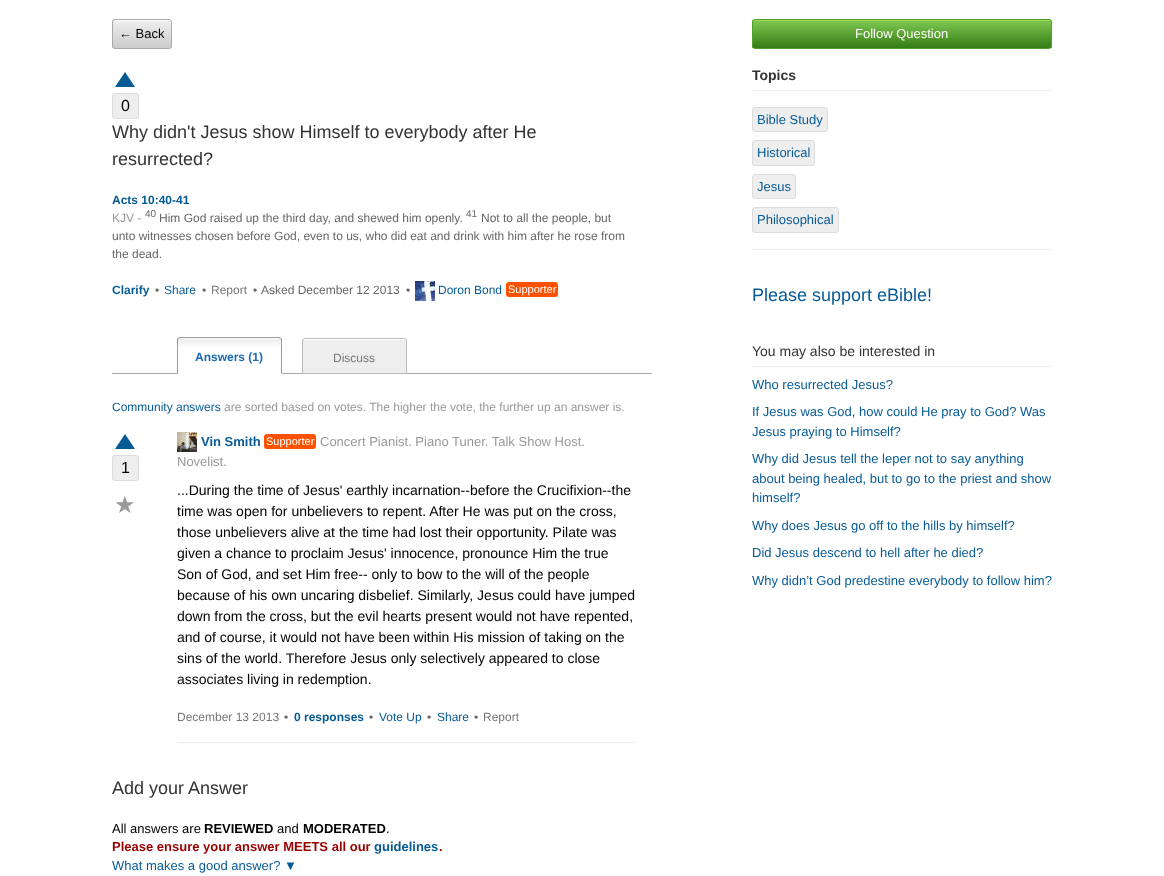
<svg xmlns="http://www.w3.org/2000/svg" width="1164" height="876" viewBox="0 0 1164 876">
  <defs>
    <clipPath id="clip1"><rect x="112" y="19" width="60" height="30" rx="3"/></clipPath>
    <linearGradient id="g1" gradientUnits="userSpaceOnUse" x1="142" y1="48" x2="142" y2="20"><stop offset="0.01" stop-color="#ccc"/><stop offset="0.96" stop-color="#eee"/><stop offset="0.97" stop-color="#fff"/></linearGradient>
    <clipPath id="clip2"><path d="M180 337H279C280.5 337 282 338.5 282 340V374H177V340C177 338.5 178.5 337 180 337Z"/></clipPath>
    <linearGradient id="g2" gradientUnits="userSpaceOnUse" x1="230" y1="373" x2="230" y2="338"><stop offset="0.7" stop-color="#fff"/><stop offset="0.96" stop-color="#eee"/><stop offset="0.97" stop-color="#fff"/></linearGradient>
    <clipPath id="clip3"><rect x="752" y="19" width="300" height="30" rx="3"/></clipPath>
    <linearGradient id="g3" gradientUnits="userSpaceOnUse" x1="902" y1="48" x2="902" y2="20"><stop offset="0.01" stop-color="#357d16"/><stop offset="0.96" stop-color="#7dc750"/><stop offset="0.97" stop-color="#9ed557"/></linearGradient>
  </defs>
  <rect width="100%" height="100%" fill="#fff"/>
  <g clip-path="url(#clip1)">
    <path d="M112 20h60v28H112z" fill="url(#g1)"/>
  </g>
  <rect x="112.5" y="19.5" width="59" height="29" rx="2.5" fill="none" stroke="#aaa"/>
  <path d="M135 87H115L125 72Z" fill="#075b95"/>
  <rect x="112.5" y="93.5" width="26" height="25" rx="2.5" fill="#eee" stroke="#ddd"/>
  <image x="415" y="281" width="20" height="20" href="img/1.png"/>
  <rect x="506" y="282" width="52" height="15" rx="3" fill="#ff5200"/>
  <path d="M112 373h540v1H112z" fill="#aaa"/>
  <g clip-path="url(#clip2)">
    <path d="M177 338h105v35H177z" fill="url(#g2)"/>
  </g>
  <path d="M180 337L178 338L179 339L180 338H279L280 339L281 338L279 337Z" fill="#999"/>
  <path d="M282 374V340C282 339 282 338 281 338L280.5 338.5L281 340V373Z" fill="#999"/>
  <path d="M282 374L281 373H178L177 374Z" fill="#fff"/>
  <path d="M177 374L178 373V340L178.5 338.5L178 338C177 338 177 339 177 340Z" fill="#999"/>
  <path d="M302 340h105v33H302z" fill="#eee"/>
  <path d="M305 338.5H404C405.5 338.5 406.5 339.5 406.5 341V373.5H302.5V341C302.5 339.5 303.5 338.5 305 338.5Z" fill="none" stroke="#bbb"/>
  <path d="M135 449H115L125 434Z" fill="#075b95"/>
  <rect x="112.5" y="455.5" width="26" height="25" rx="2.5" fill="#eee" stroke="#ddd"/>
  <image x="177" y="432" width="20" height="20" href="img/2.png"/>
  <rect x="264" y="434" width="52" height="15" rx="3" fill="#ff5200"/>
  <path d="M177 742h459v1H177z" fill="#eee"/>
  <g clip-path="url(#clip3)">
    <path d="M752 20h300v28H752z" fill="url(#g3)"/>
  </g>
  <rect x="752.5" y="19.5" width="299" height="29" rx="2.5" fill="none" stroke="#4ea229"/>
  <path d="M752 90h300v1H752z" fill="#eee"/>
  <rect x="752.5" y="107.5" width="75" height="24" rx="2.5" fill="#eee" stroke="#ddd"/>
  <rect x="752.5" y="140.5" width="62" height="25" rx="2.5" fill="#eee" stroke="#ddd"/>
  <rect x="752.5" y="174.5" width="43" height="24" rx="2.5" fill="#eee" stroke="#ddd"/>
  <rect x="752.5" y="207.5" width="86" height="25" rx="2.5" fill="#eee" stroke="#ddd"/>
  <path d="M752 249h300v1H752z" fill="#eee"/>
  <path d="M752 366h300v1H752z" fill="#eee"/>
  <text x="119" y="38" font-family="Liberation Sans" font-size="13" fill="#000">← Back</text>
  <text x="121" y="111" font-family="Liberation Sans" font-size="16" fill="#000">0</text>
  <g font-family="Liberation Sans" font-size="18" fill="#333">
    <text x="112" y="138">Why didn't Jesus show Himself to everybody after He</text>
    <text x="112" y="165">resurrected?</text>
  </g>
  <text x="112" y="204" font-family="Liberation Sans" font-size="12" font-weight="bold" fill="#075b95">Acts 10:40-41</text>
  <text x="112" y="222" font-family="Liberation Sans" font-size="12" fill="#999">KJV -</text>
  <text x="145" y="217" font-family="Liberation Sans" font-size="10" fill="#666">40</text>
  <text x="159" y="222" font-family="Liberation Sans" font-size="12" fill="#666">Him God raised up the third day, and shewed him openly.</text>
  <text x="466" y="217" font-family="Liberation Sans" font-size="10" fill="#666">41</text>
  <g font-family="Liberation Sans" font-size="12" fill="#666">
    <text x="481" y="222">Not to all the people, but</text>
    <text x="112" y="240">unto witnesses chosen before God, even to us, who did eat and drink with him after he rose from</text>
    <text x="112" y="258">the dead.</text>
  </g>
  <text x="112" y="294" font-family="Liberation Sans" font-size="12" font-weight="bold" fill="#075b95">Clarify</text>
  <text x="155" y="294" font-family="Liberation Sans" font-size="12" fill="#666">•</text>
  <text x="164" y="294" font-family="Liberation Sans" font-size="12" fill="#075b95">Share</text>
  <text x="202" y="294" font-family="Liberation Sans" font-size="12" fill="#666">•</text>
  <text x="211" y="294" font-family="Liberation Sans" font-size="12" fill="#777">Report</text>
  <g font-family="Liberation Sans" font-size="12" fill="#666">
    <text x="253" y="294">•</text>
    <text x="261" y="294">Asked December 12 2013</text>
    <text x="406" y="294">•</text>
  </g>
  <text x="438" y="294" font-family="Liberation Sans" font-size="12" fill="#075b95">Doron Bond</text>
  <text x="508" y="293" font-family="Liberation Sans" font-size="11" fill="#fff">Supporter</text>
  <text x="195" y="361" font-family="Liberation Sans" font-size="12" font-weight="bold" fill="#1e6bb2">Answers (1)</text>
  <text x="333" y="362" font-family="Liberation Sans" font-size="12" fill="#777">Discuss</text>
  <text x="112" y="411" font-family="Liberation Sans" font-size="12" fill="#075b95">Community answers</text>
  <text x="224" y="411" font-family="Liberation Sans" font-size="12" fill="#999">are sorted based on votes. The higher the vote, the further up an answer is.</text>
  <text x="121" y="473" font-family="Liberation Sans" font-size="16" fill="#000">1</text>
  <text x="114" y="513" font-family="DejaVu Sans" font-size="24" fill="#999">★</text>
  <text x="201" y="446" font-family="Liberation Sans" font-size="13" font-weight="bold" fill="#075b95">Vin Smith</text>
  <text x="266" y="445" font-family="Liberation Sans" font-size="11" fill="#fff">Supporter</text>
  <g font-family="Liberation Sans" font-size="13" fill="#999">
    <text x="320" y="446">Concert Pianist. Piano Tuner. Talk Show Host.</text>
    <text x="177" y="466">Novelist.</text>
  </g>
  <g font-family="Liberation Sans" font-size="14" fill="#000">
    <text x="177" y="495">...During the time of Jesus' earthly incarnation--before the Crucifixion--the</text>
    <text x="177" y="516">time was open for unbelievers to repent. After He was put on the cross,</text>
    <text x="177" y="537">those unbelievers alive at the time had lost their opportunity. Pilate was</text>
    <text x="177" y="558">given a chance to proclaim Jesus' innocence, pronounce Him the true</text>
    <text x="177" y="579">Son of God, and set Him free-- only to bow to the will of the people</text>
    <text x="177" y="600">because of his own uncaring disbelief. Similarly, Jesus could have jumped</text>
    <text x="177" y="621">down from the cross, but the evil hearts present would not have repented,</text>
    <text x="177" y="642">and of course, it would not have been within His mission of taking on the</text>
    <text x="177" y="663">sins of the world. Therefore Jesus only selectively appeared to close</text>
    <text x="177" y="684">associates living in redemption.</text>
  </g>
  <text x="177" y="721" font-family="Liberation Sans" font-size="12" fill="#777">December 13 2013</text>
  <text x="284" y="721" font-family="Liberation Sans" font-size="12" fill="#666">•</text>
  <text x="294" y="721" font-family="Liberation Sans" font-size="12" font-weight="bold" fill="#075b95">0 responses</text>
  <text x="369" y="721" font-family="Liberation Sans" font-size="12" fill="#666">•</text>
  <text x="379" y="721" font-family="Liberation Sans" font-size="12" fill="#075b95">Vote Up</text>
  <text x="427" y="721" font-family="Liberation Sans" font-size="12" fill="#666">•</text>
  <text x="437" y="721" font-family="Liberation Sans" font-size="12" fill="#075b95">Share</text>
  <text x="474" y="721" font-family="Liberation Sans" font-size="12" fill="#666">•</text>
  <text x="483" y="721" font-family="Liberation Sans" font-size="12" fill="#777">Report</text>
  <text x="112" y="794" font-family="Liberation Sans" font-size="18" fill="#333">Add your Answer</text>
  <text x="112" y="833" font-family="Liberation Sans" font-size="13" fill="#000">All answers are</text>
  <text x="204" y="833" font-family="Liberation Sans" font-size="13" font-weight="bold" fill="#000">REVIEWED</text>
  <text x="277" y="833" font-family="Liberation Sans" font-size="13" fill="#000">and</text>
  <text x="303" y="833" font-family="Liberation Sans" font-size="13" font-weight="bold" fill="#000">MODERATED</text>
  <text x="386" y="833" font-family="Liberation Sans" font-size="13" fill="#000">.</text>
  <text x="112" y="851" font-family="Liberation Sans" font-size="13" font-weight="bold" fill="#900">Please ensure your answer MEETS all our</text>
  <text x="374" y="851" font-family="Liberation Sans" font-size="13" font-weight="bold" fill="#075b95">guidelines</text>
  <text x="439" y="851" font-family="Liberation Sans" font-size="13" font-weight="bold" fill="#900">.</text>
  <text x="112" y="870" font-family="Liberation Sans" font-size="13" fill="#075b95">What makes a good answer? ▼</text>
  <text x="855" y="38" font-family="Liberation Sans" font-size="13" fill="#fff">Follow Question</text>
  <text x="752" y="80" font-family="Liberation Sans" font-size="14" font-weight="bold" fill="#333">Topics</text>
  <g font-family="Liberation Sans" font-size="13" fill="#075b95">
    <text x="757" y="124">Bible Study</text>
    <text x="757" y="157">Historical</text>
    <text x="757" y="191">Jesus</text>
    <text x="757" y="224">Philosophical</text>
  </g>
  <text x="752" y="301" font-family="Liberation Sans" font-size="18" fill="#075b95">Please support eBible!</text>
  <text x="752" y="356" font-family="Liberation Sans" font-size="14" fill="#333">You may also be interested in</text>
  <g font-family="Liberation Sans" font-size="13" fill="#075b95">
    <text x="752" y="389">Who resurrected Jesus?</text>
    <text x="752" y="416">If Jesus was God, how could He pray to God? Was</text>
    <text x="752" y="436">Jesus praying to Himself?</text>
    <text x="752" y="463">Why did Jesus tell the leper not to say anything</text>
    <text x="752" y="483">about being healed, but to go to the priest and show</text>
    <text x="752" y="502">himself?</text>
    <text x="752" y="530">Why does Jesus go off to the hills by himself?</text>
    <text x="752" y="557">Did Jesus descend to hell after he died?</text>
    <text x="752" y="585">Why didn’t God predestine everybody to follow him?</text>
  </g>
</svg>
